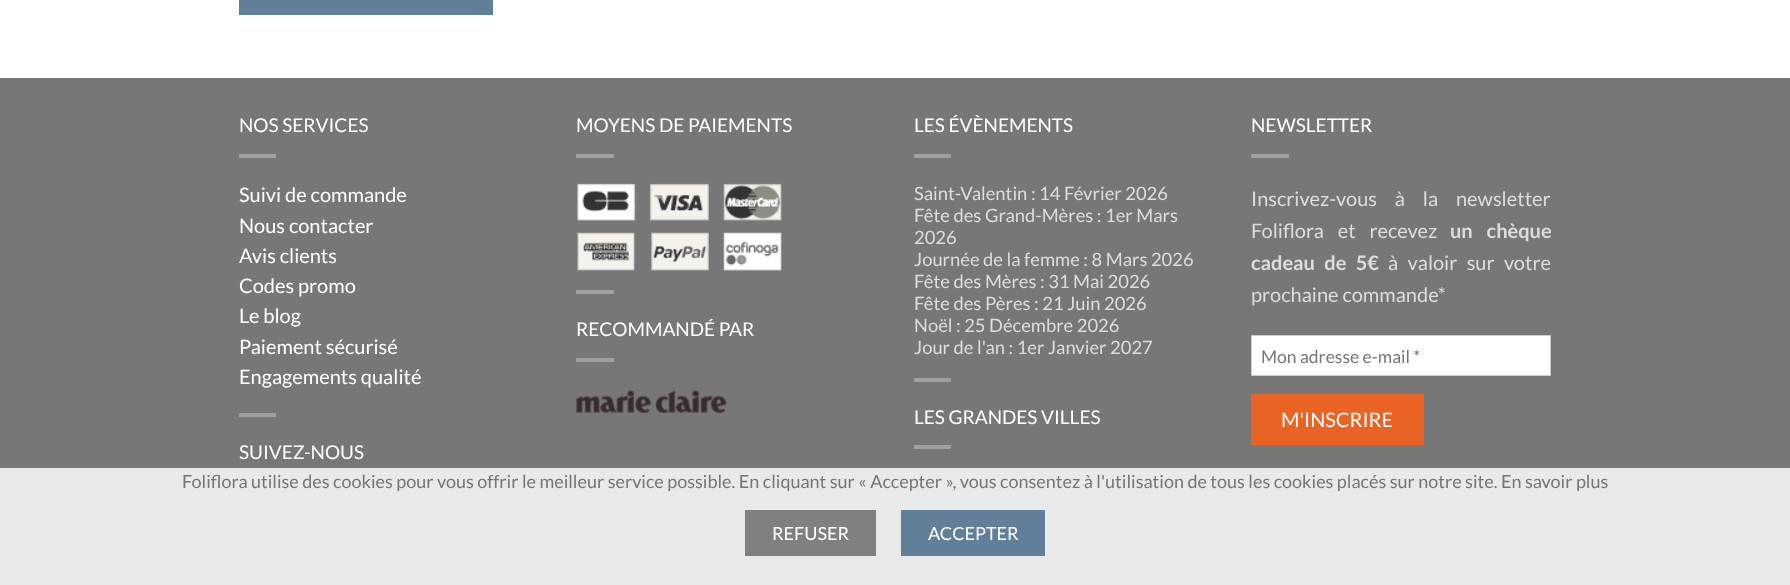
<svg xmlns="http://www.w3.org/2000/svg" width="1790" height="585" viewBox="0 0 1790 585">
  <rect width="100%" height="100%" fill="#fff"/>
  <path d="M239 0h254v15H239z" fill="#627f9a"/>
  <path d="M0 78h1790v390H0z" fill="#777"/>
  <path d="M239 154h37v4H239z" fill="#a0a0a0"/>
  <path d="M239 413h37v4H239z" fill="#a0a0a0"/>
  <path d="M576 154h38v4H576z" fill="#a0a0a0"/>
  <image x="577" y="183" width="205" height="88" href="img/1.png"/>
  <path d="M576 290h38v4H576z" fill="#a0a0a0"/>
  <path d="M576 358h38v4H576z" fill="#a0a0a0"/>
  <image x="576" y="390" width="151" height="23" href="img/2.png"/>
  <path d="M914 154h37v4H914z" fill="#a0a0a0"/>
  <path d="M914 378h37v4H914z" fill="#a0a0a0"/>
  <path d="M914 445h37v4H914z" fill="#a0a0a0"/>
  <path d="M1251 154h38v4H1251z" fill="#a0a0a0"/>
  <path d="M1251.5 335.5h299v40H1251.5z" fill="#fff" stroke="#ccc"/>
  <path d="M1251 394h173v51H1251z" fill="#e86324"/>
  <path d="M0 468h1790v117H0z" fill="#e9e9e9"/>
  <path d="M745 510h131v46H745z" fill="#808080"/>
  <path d="M901 510h144v46H901z" fill="#627f9a"/>
  <text x="239" y="132" font-family="Lato" font-size="19" fill="#fff">NOS SERVICES</text>
  <g font-family="Lato" font-size="20" fill="#fff">
    <text x="239" y="202">Suivi de commande</text>
    <text x="239" y="233">Nous contacter</text>
    <text x="239" y="263">Avis clients</text>
    <text x="239" y="293">Codes promo</text>
    <text x="239" y="323">Le blog</text>
    <text x="239" y="354">Paiement sécurisé</text>
    <text x="239" y="384">Engagements qualité</text>
  </g>
  <g font-family="Lato" font-size="19" fill="#fff">
    <text x="239" y="459">SUIVEZ-NOUS</text>
    <text x="576" y="132">MOYENS DE PAIEMENTS</text>
    <text x="576" y="336">RECOMMANDÉ PAR</text>
    <text x="914" y="132">LES ÉVÈNEMENTS</text>
  </g>
  <g font-family="Lato" font-size="18.4" fill="#ddd">
    <text x="914" y="200">Saint-Valentin : 14 Février 2026</text>
    <text x="914" y="222">Fête des Grand-Mères : 1er Mars</text>
    <text x="914" y="244">2026</text>
    <text x="914" y="266">Journée de la femme : 8 Mars 2026</text>
    <text x="914" y="288">Fête des Mères : 31 Mai 2026</text>
    <text x="914" y="310">Fête des Pères : 21 Juin 2026</text>
    <text x="914" y="332">Noël : 25 Décembre 2026</text>
    <text x="914" y="354">Jour de l'an : 1er Janvier 2027</text>
  </g>
  <g font-family="Lato" font-size="19" fill="#fff">
    <text x="914" y="424">LES GRANDES VILLES</text>
    <text x="1251" y="132">NEWSLETTER</text>
  </g>
  <g font-family="Lato" font-size="20" fill="#ddd">
    <text x="1251" y="206" word-spacing="14">Inscrivez-vous à la newsletter</text>
    <text x="1251" y="238" word-spacing="10">Foliflora et recevez</text>
  </g>
  <g font-family="Lato" font-size="20" font-weight="bold" fill="#ddd">
    <text x="1450" y="238" word-spacing="10">un chèque</text>
    <text x="1251" y="270" word-spacing="5.5">cadeau de 5€</text>
  </g>
  <g font-family="Lato" font-size="20" fill="#ddd">
    <text x="1388" y="270" word-spacing="5.5">à valoir sur votre</text>
    <text x="1251" y="302">prochaine commande*</text>
  </g>
  <text x="1261" y="363" font-family="Lato" font-size="17.5" fill="#757575">Mon adresse e-mail *</text>
  <text x="1281" y="427" font-family="Lato" font-size="20" fill="#fff">M'INSCRIRE</text>
  <text x="182" y="488" font-family="Lato" font-size="18" fill="#757575">Foliflora utilise des cookies pour vous offrir le meilleur service possible. En cliquant sur « Accepter », vous consentez à l'utilisation de tous les cookies placés sur notre site. En savoir plus</text>
  <g font-family="Lato" font-size="18" fill="#fff">
    <text x="772" y="540">REFUSER</text>
    <text x="928" y="540">ACCEPTER</text>
  </g>
</svg>
